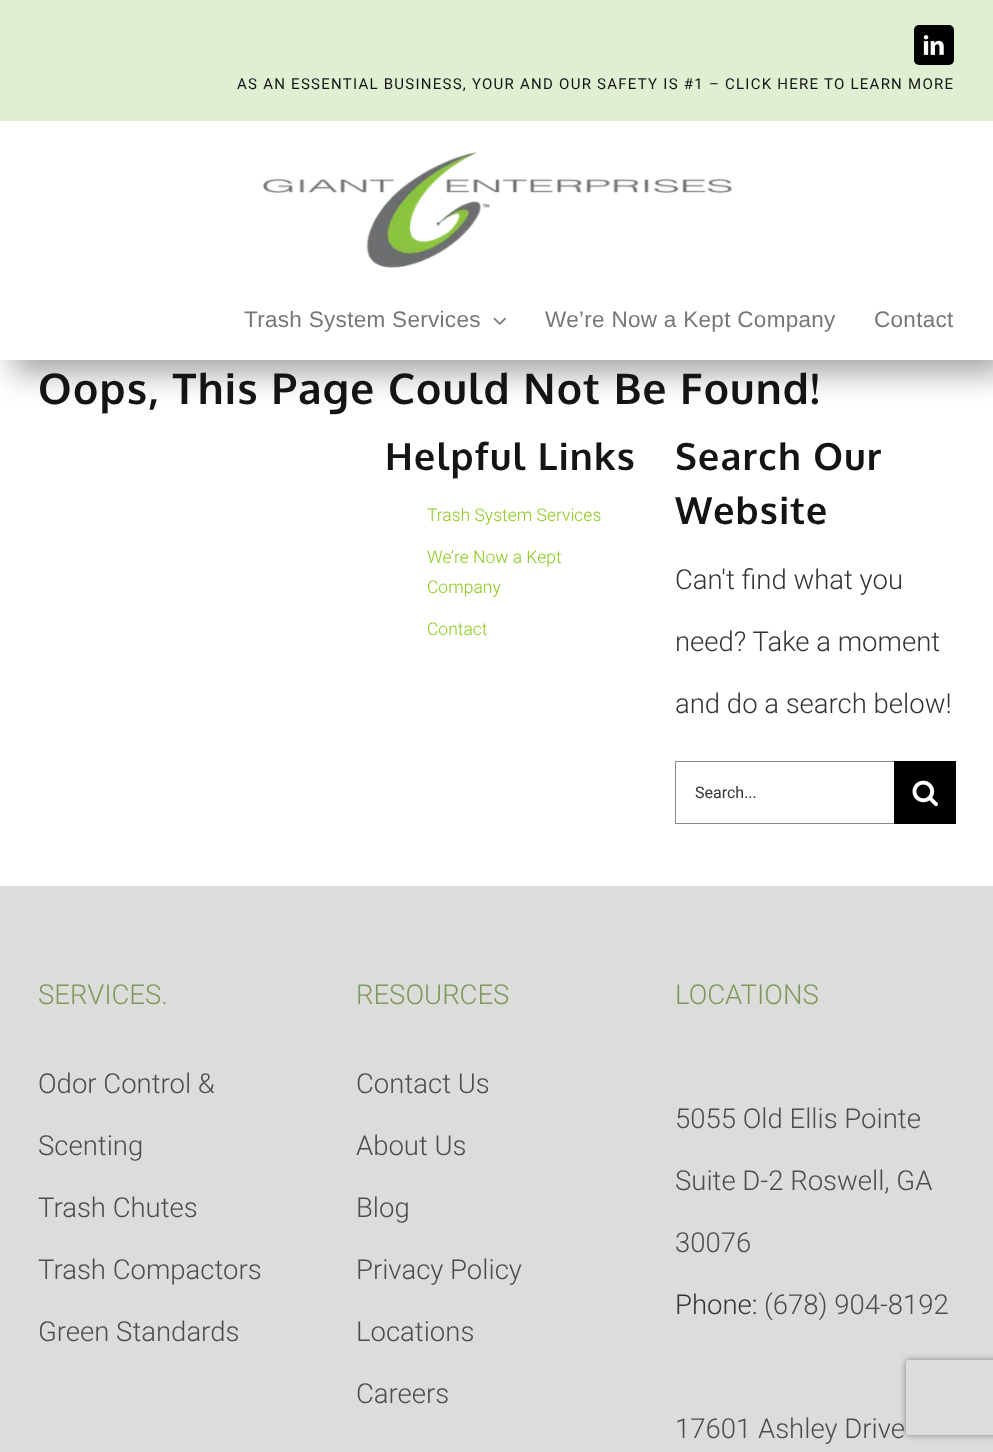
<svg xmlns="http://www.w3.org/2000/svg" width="993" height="1452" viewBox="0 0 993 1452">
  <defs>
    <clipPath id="clip1"><path d="M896 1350H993V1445H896ZM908.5 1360H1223.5C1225 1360 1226 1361 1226 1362.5V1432.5C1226 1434 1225 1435 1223.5 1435H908.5C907 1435 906 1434 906 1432.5V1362.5C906 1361 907 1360 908.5 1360Z" clip-rule="evenodd"/></clipPath>
  </defs>
  <rect width="100%" height="100%" fill="#fff"/>
  <path d="M13 134h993v239H13z" fill="#33333373" filter="blur(15.5px)"/>
  <path d="M0 0h993v121H0z" fill="#def0d1"/>
  <rect x="914" y="25" width="40" height="40" rx="5" fill="#000"/>
  <image x="923" y="35" width="21" height="20" href="img/1.png"/>
  <path d="M0 121h993v239H0z" fill="#fff"/>
  <image x="262" y="152" width="471" height="116" href="img/2.png"/>
  <image x="493" y="317" width="13" height="8" href="img/3.png"/>
  <path d="M675 761h219v1H675z" fill="#898d88"/>
  <path d="M675 823h219v1H675z" fill="#898d88"/>
  <path d="M675 761h1v63H675z" fill="#898d88"/>
  <path d="M894 761h62v63H894z" fill="#000"/>
  <image x="912" y="780" width="26" height="27" href="img/4.png"/>
  <path d="M0 886h993v566H0z" fill="#dcdddb"/>
  <g clip-path="url(#clip1)">
    <rect x="906" y="1360" width="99" height="75" rx="2.5" fill="#808080" filter="blur(3px)"/>
  </g>
  <text x="237" y="89" font-family="Roboto" font-size="15" letter-spacing="1.25" fill="#141414">AS AN ESSENTIAL BUSINESS, YOUR AND OUR SAFETY IS #1 – CLICK HERE TO LEARN MORE</text>
  <g font-family="Liberation Sans" font-size="22.5" letter-spacing="0.3" fill="#777">
    <text x="244" y="327">Trash System Services</text>
    <text x="545" y="327">We’re Now a Kept Company</text>
    <text x="874" y="327">Contact</text>
  </g>
  <text x="38" y="404" font-family="Oxygen" font-size="42.4" font-weight="bold" letter-spacing="1.25" fill="#141414">Oops, This Page Could Not Be Found!</text>
  <text x="385" y="470" font-family="Oxygen" font-size="37.5" font-weight="bold" letter-spacing="1.25" fill="#141414">Helpful Links</text>
  <g font-family="Roboto" font-size="17.5" font-weight="300" fill="#8cca1b">
    <text x="427" y="521">Trash System Services</text>
    <text x="427" y="563">We’re Now a Kept</text>
    <text x="427" y="593">Company</text>
    <text x="427" y="635">Contact</text>
  </g>
  <g font-family="Oxygen" font-size="37.5" font-weight="bold" letter-spacing="1.25" fill="#141414">
    <text x="675" y="470">Search Our</text>
    <text x="675" y="524">Website</text>
  </g>
  <g font-family="Roboto" font-size="27.5" font-weight="300" fill="#333">
    <text x="675" y="589">Can't find what you</text>
    <text x="675" y="651">need? Take a moment</text>
    <text x="675" y="713">and do a search below!</text>
  </g>
  <text x="695" y="798" font-family="Roboto" font-size="16" fill="#333">Search...</text>
  <text x="38" y="1004" font-family="Roboto" font-size="27.5" font-weight="300" fill="#80985c">SERVICES.</text>
  <g font-family="Roboto" font-size="27.5" font-weight="300" fill="#4c4c4c">
    <text x="38" y="1093">Odor Control &amp;</text>
    <text x="38" y="1155">Scenting</text>
    <text x="38" y="1217">Trash Chutes</text>
    <text x="38" y="1279">Trash Compactors</text>
    <text x="38" y="1341">Green Standards</text>
  </g>
  <text x="356" y="1004" font-family="Roboto" font-size="27.5" font-weight="300" fill="#80985c">RESOURCES</text>
  <g font-family="Roboto" font-size="27.5" font-weight="300" fill="#4c4c4c">
    <text x="356" y="1093">Contact Us</text>
    <text x="356" y="1155">About Us</text>
    <text x="356" y="1217">Blog</text>
    <text x="356" y="1279">Privacy Policy</text>
    <text x="356" y="1341">Locations</text>
    <text x="356" y="1403">Careers</text>
  </g>
  <text x="675" y="1004" font-family="Roboto" font-size="27.5" font-weight="300" fill="#80985c">LOCATIONS</text>
  <g font-family="Roboto" font-size="27.5" font-weight="300" fill="#4c4c4c">
    <text x="675" y="1128">5055 Old Ellis Pointe</text>
    <text x="675" y="1190">Suite D-2 Roswell, GA</text>
    <text x="675" y="1252">30076</text>
  </g>
  <text x="675" y="1314" font-family="Roboto" font-size="27.5" font-weight="300" fill="#333">Phone:</text>
  <g font-family="Roboto" font-size="27.5" font-weight="300" fill="#4c4c4c">
    <text x="764" y="1314">(678) 904-8192</text>
    <text x="675" y="1438">17601 Ashley Drive</text>
  </g>
</svg>
